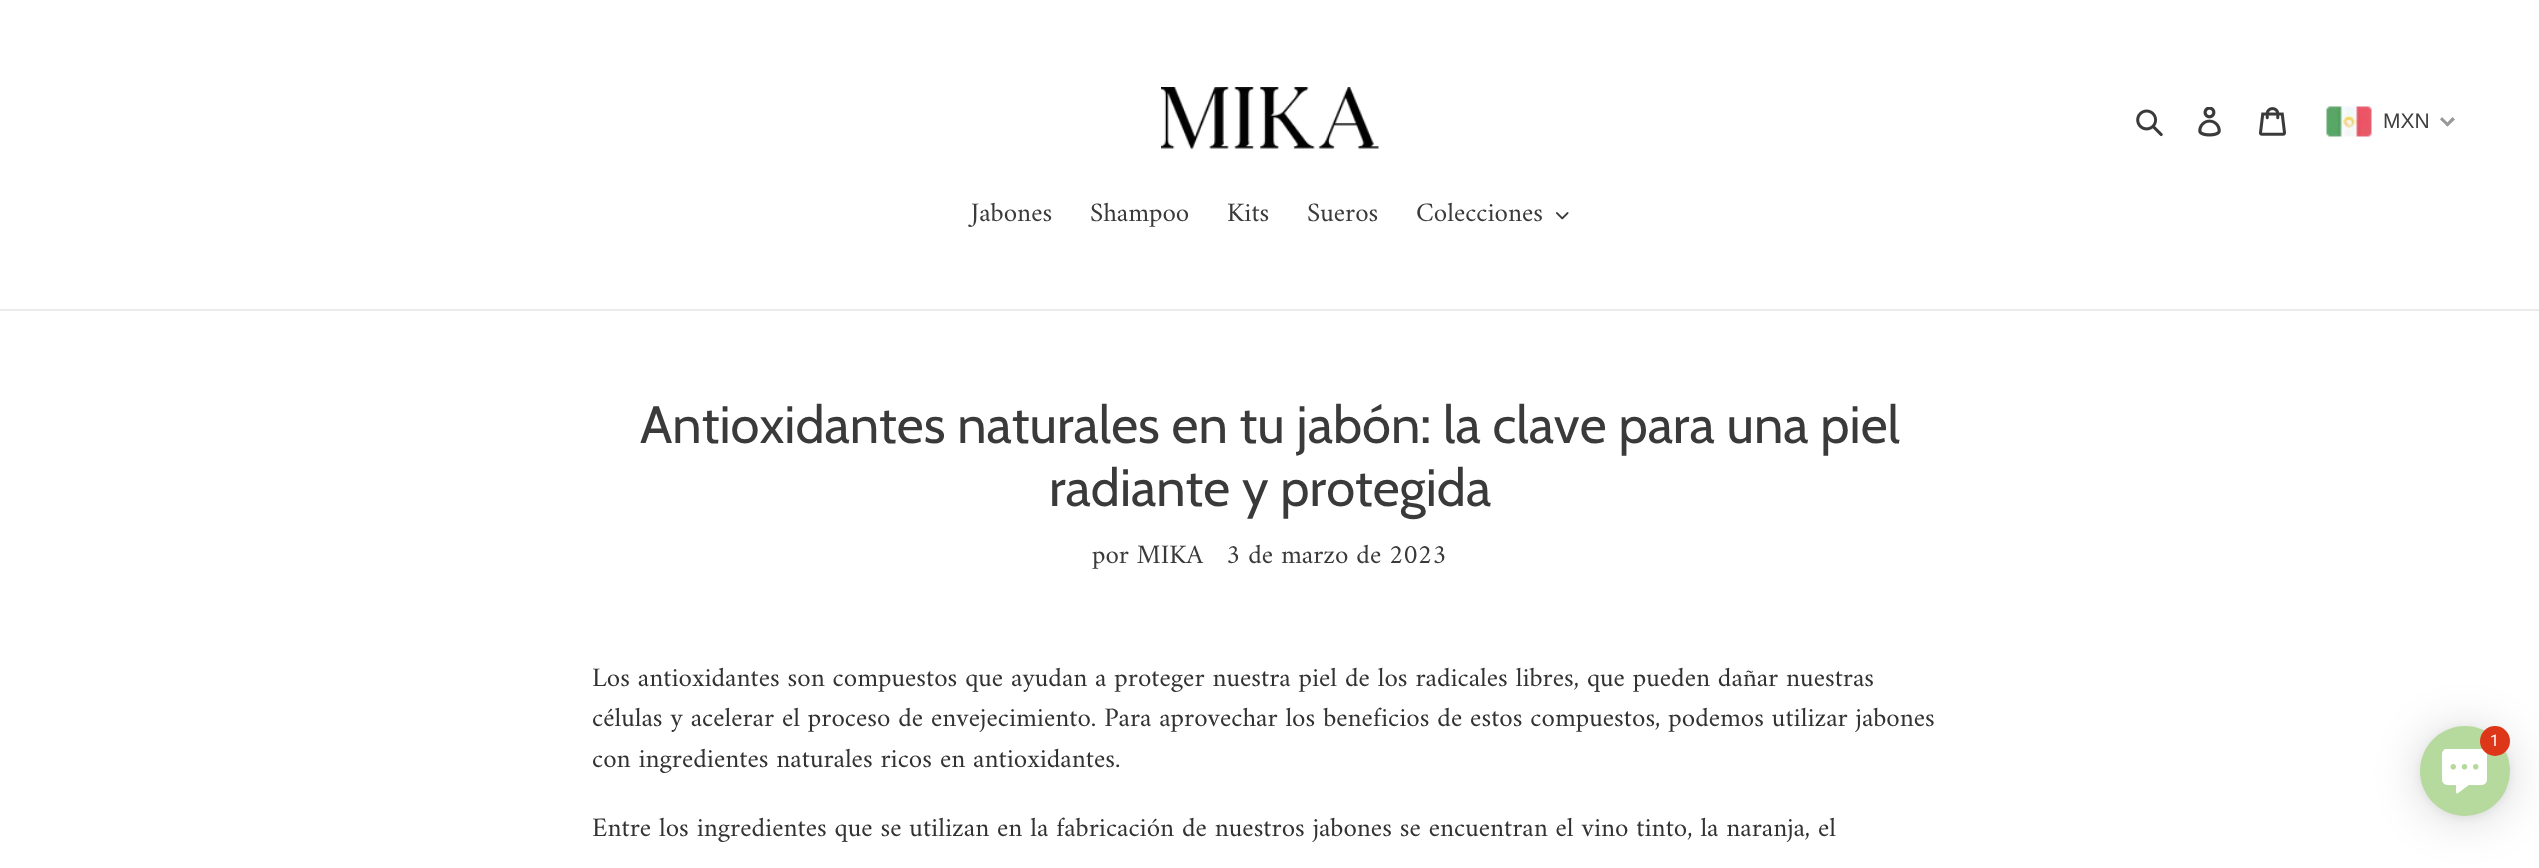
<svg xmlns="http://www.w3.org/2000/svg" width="2539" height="868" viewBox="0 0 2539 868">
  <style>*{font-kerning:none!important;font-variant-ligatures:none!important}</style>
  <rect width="100%" height="100%" fill="#fff"/>
  <image x="1161" y="87" width="218" height="63" href="img/1.png"/>
  <image x="2136" y="109" width="27" height="28" href="img/2.png"/>
  <image x="2198" y="107" width="23" height="30" href="img/3.png"/>
  <image x="2259" y="107" width="27" height="29" href="img/4.png"/>
  <image x="2326" y="106" width="46" height="31" href="img/5.png"/>
  <path d="M2452.5 117L2455 119.5L2447.5 126.5L2445.5 124.5Z" fill="#999"/>
  <path d="M2442 117L2449.5 124.5L2447.5 126.5L2440 119.5Z" fill="#999"/>
  <path d="M0 309h2539v2H0z" fill="#ebebeb"/>
  <image x="1556" y="212" width="13" height="8" href="img/6.png"/>
  <rect x="2420" y="729" width="90" height="90" rx="45" fill="#00000029" filter="blur(24px)"/>
  <rect x="2420" y="728" width="90" height="90" rx="45" fill="#0000000f" filter="blur(4.5px)"/>
  <circle cx="2465" cy="771" r="45" fill="#b6da9e"/>
  <image x="2442" y="749" width="45" height="45" href="img/7.png"/>
  <circle cx="2495" cy="741" r="15" fill="#de3618"/>
  <text x="2383" y="128" font-family="Liberation Sans" font-size="21" fill="#403f3f">MXN</text>
  <g font-family="Amiri" font-size="27" fill="#3a3a3a">
    <text x="971" y="221">Jabones</text>
    <text x="1090" y="221">Shampoo</text>
    <text x="1227" y="221">Kits</text>
    <text x="1307" y="221">Sueros</text>
    <text x="1416" y="221">Colecciones</text>
  </g>
  <g font-family="Cabin" font-size="52.5" fill="#3a3a3a">
    <text x="640" y="443">Antioxidantes naturales en tu jabón: la clave para una piel</text>
    <text x="1049" y="506">radiante y protegida</text>
  </g>
  <g font-family="Amiri" font-size="27" fill="#3a3a3a">
    <text x="1092" y="563">por MIKA</text>
    <text x="1226" y="563">3 de marzo de 2023</text>
  </g>
  <g font-family="Amiri" font-size="27" fill="#333232">
    <text x="592" y="686">Los antioxidantes son compuestos que ayudan a proteger nuestra piel de los radicales libres, que pueden dañar nuestras</text>
    <text x="592" y="726">células y acelerar el proceso de envejecimiento. Para aprovechar los beneficios de estos compuestos, podemos utilizar jabones</text>
    <text x="592" y="767">con ingredientes naturales ricos en antioxidantes.</text>
    <text x="592" y="836">Entre los ingredientes que se utilizan en la fabricación de nuestros jabones se encuentran el vino tinto, la naranja, el</text>
  </g>
  <text x="2490" y="746" font-family="Roboto" font-size="16" fill="#fff">1</text>
</svg>
